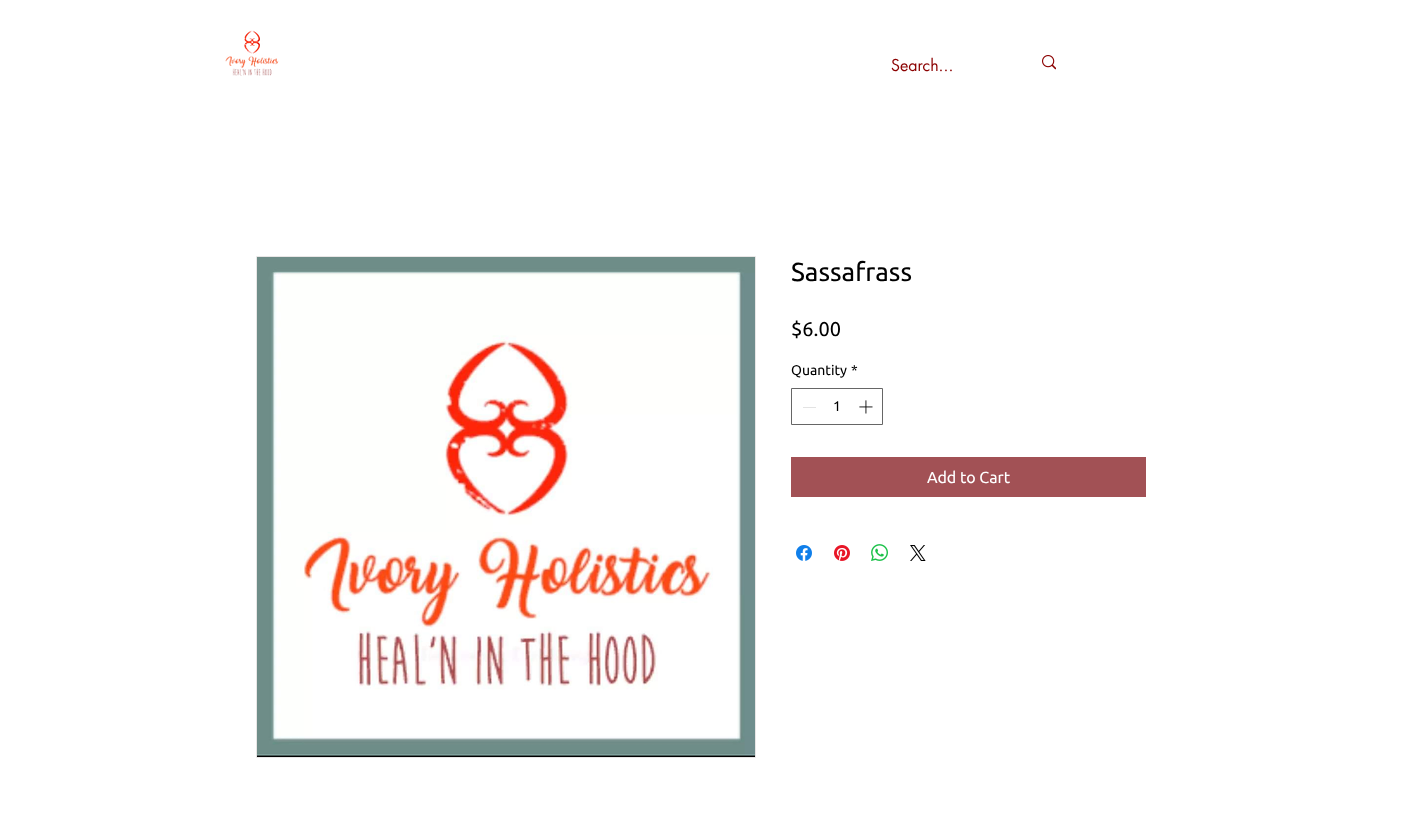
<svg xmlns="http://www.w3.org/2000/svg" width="1402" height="838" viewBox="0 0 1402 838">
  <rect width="100%" height="100%" fill="#fff"/>
  <image x="225" y="30" width="54" height="46" href="img/1.png"/>
  <image x="1042" y="55" width="14" height="15" href="img/2.png"/>
  <path d="M256.5 256.5h499v501H256.5z" fill="none" stroke="#e8e6e6"/>
  <image x="257" y="257" width="498" height="500" href="img/3.png"/>
  <path d="M791.5 388.5h91v36H791.5z" fill="none" stroke="#666"/>
  <path d="M803 407h13v1H803z" fill="#e3e3e3"/>
  <image x="859" y="400" width="14" height="14" href="img/4.png"/>
  <path d="M791 457h355v40H791z" fill="#a25155"/>
  <image x="796" y="545" width="16" height="16" href="img/5.png"/>
  <image x="834" y="545" width="16" height="16" href="img/6.png"/>
  <image x="871" y="544" width="17" height="17" href="img/7.png"/>
  <image x="910" y="545" width="16" height="16" href="img/8.png"/>
  <text x="891" y="71" font-family="futura" font-size="16" fill="#8b0000">Search...</text>
  <text x="791" y="281" font-family="Ubuntu" font-size="26" fill="#000">Sassafrass</text>
  <text x="791" y="336" font-family="Ubuntu" font-size="20" fill="#000">$6.00</text>
  <g font-family="Ubuntu" font-size="14" fill="#000">
    <text x="791" y="375">Quantity</text>
    <text x="851" y="375">*</text>
    <text x="833" y="411">1</text>
  </g>
  <text x="927" y="483" font-family="Ubuntu" font-size="16" fill="#fff">Add to Cart</text>
</svg>
